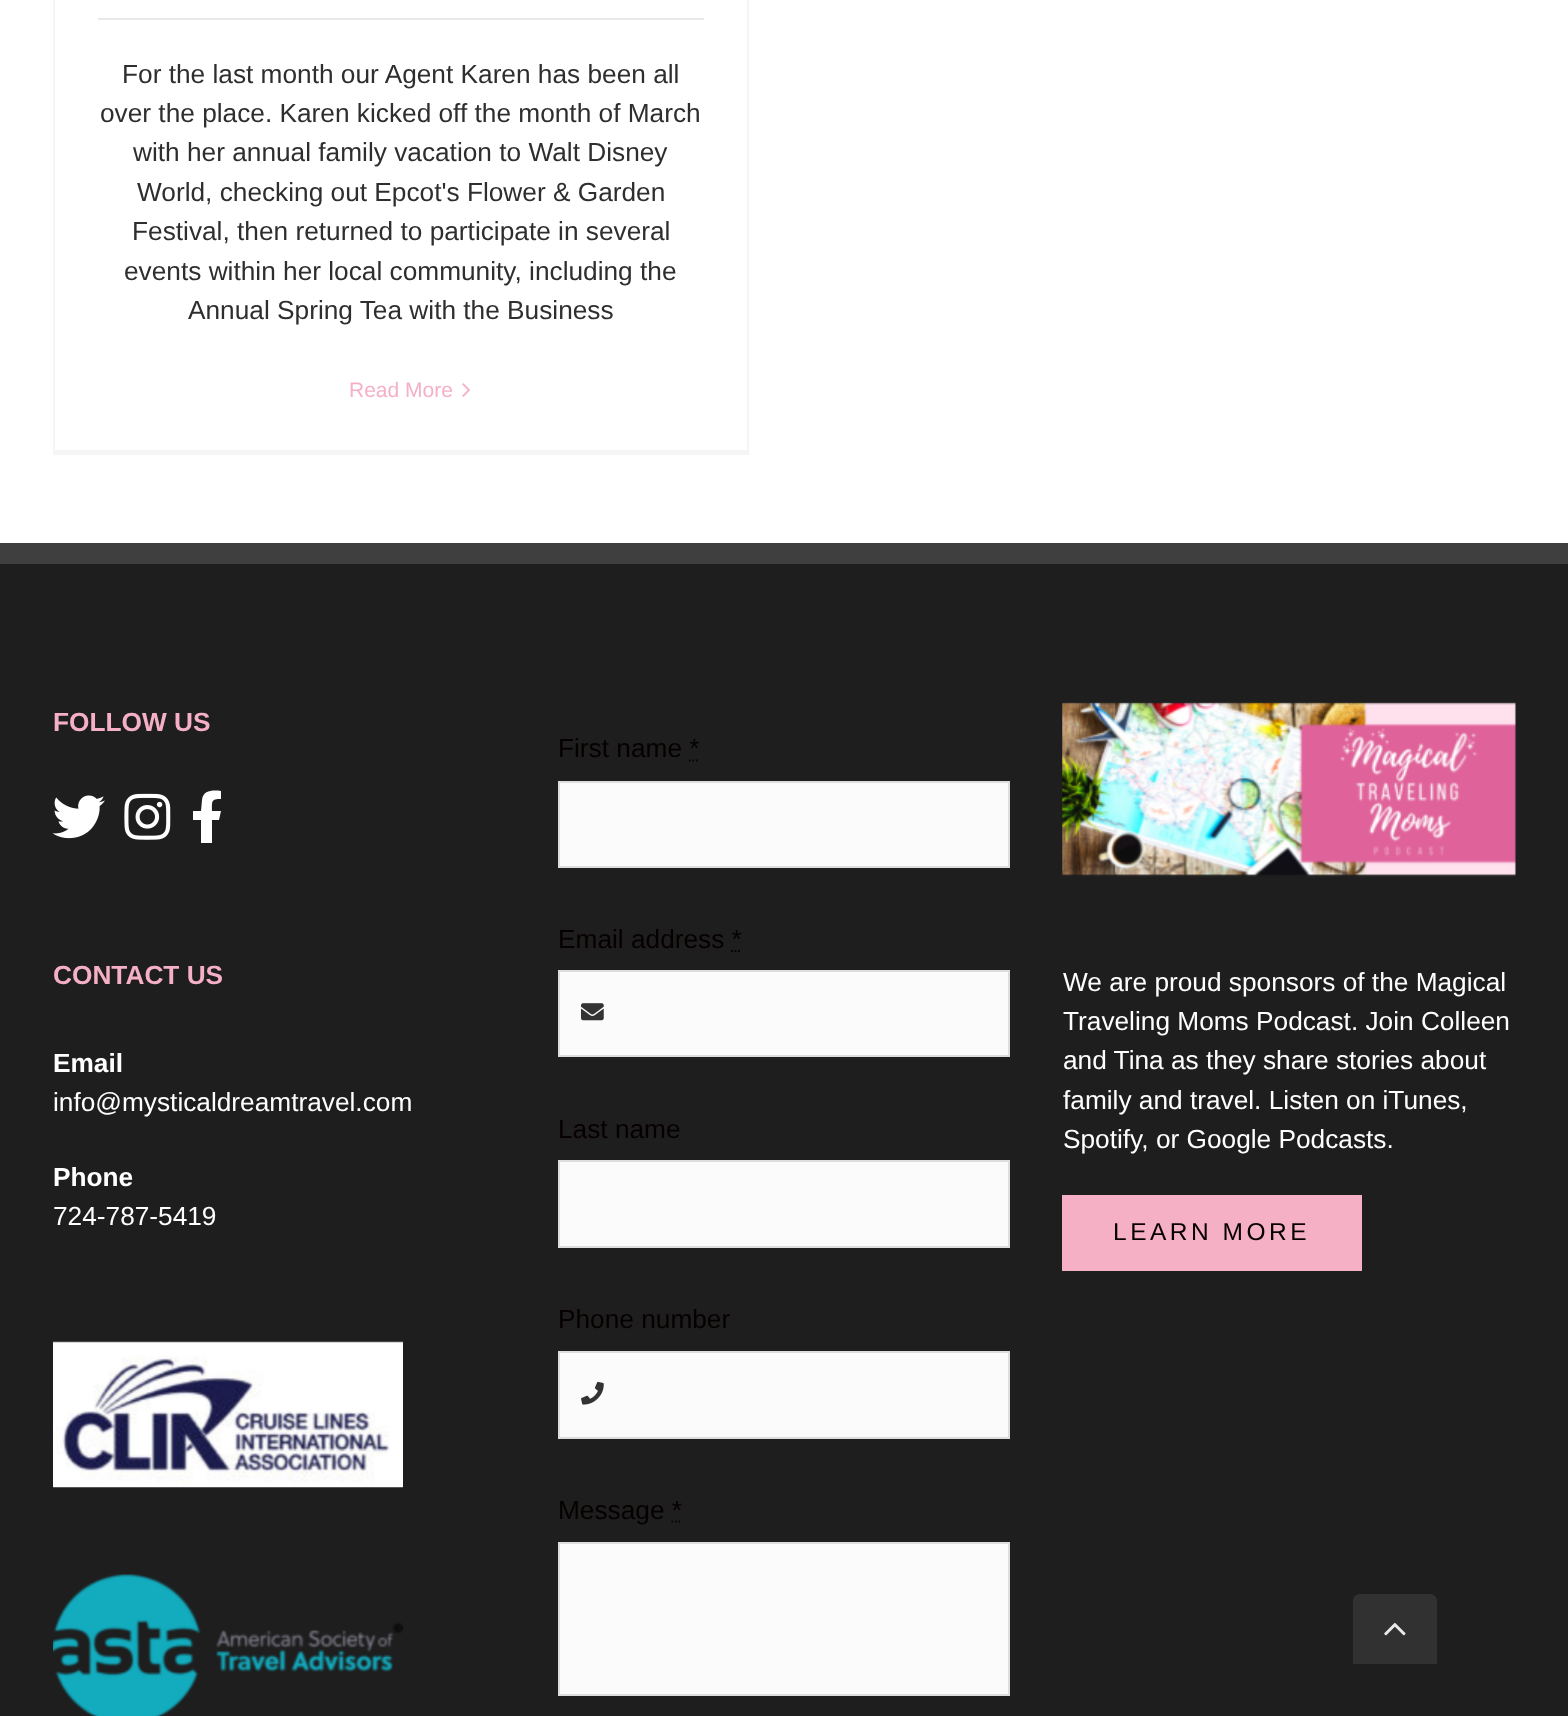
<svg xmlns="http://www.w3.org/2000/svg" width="1568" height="1716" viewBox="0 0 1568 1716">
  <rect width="100%" height="100%" fill="#fff"/>
  <path d="M747 0h2v455H747z" fill="#f5f5f5"/>
  <path d="M53 450h696v5H53z" fill="#f5f5f5"/>
  <path d="M53 0h2v455H53z" fill="#f5f5f5"/>
  <path d="M98 18h606v2H98z" fill="#eae8e8"/>
  <image x="462" y="383" width="8" height="14" href="img/1.png"/>
  <path d="M0 564h1568v1152H0z" fill="#1e1e1e"/>
  <path d="M0 543h1568v21H0z" fill="#3f3f3f"/>
  <image x="52" y="795" width="53" height="44" href="img/2.png"/>
  <image x="124" y="793" width="47" height="47" href="img/3.png"/>
  <path d="M219 820H212V843H201V820H193V811H201L202 800C203 790 213 790 221 791V799C211 799 212 801 212 811H221Z" fill="#fff"/>
  <image x="53" y="1341" width="350" height="147" href="img/4.png"/>
  <image x="53" y="1574" width="350" height="142" href="img/5.png"/>
  <path d="M689 760.5H690.5M692.5 760.5H694M696 760.5H697.5" fill="none" stroke="#050505" stroke-width="1.8"/>
  <path d="M559 782h450v85H559z" fill="#fbfbfb" stroke="#ddd" stroke-width="2"/>
  <path d="M731 951H733M734.5 951H736.5M738 951H740" fill="none" stroke="#050505" stroke-width="1.8"/>
  <path d="M559 971h450v85H559z" fill="#fbfbfb" stroke="#ddd" stroke-width="2"/>
  <image x="581" y="1003" width="23" height="18" href="img/6.png"/>
  <path d="M559 1161h450v86H559z" fill="#fbfbfb" stroke="#ddd" stroke-width="2"/>
  <path d="M559 1352h450v86H559z" fill="#fbfbfb" stroke="#ddd" stroke-width="2"/>
  <image x="581" y="1381" width="23" height="24" href="img/7.png"/>
  <path d="M559 1543h450v152H559z" fill="#fbfbfb" stroke="#ddd" stroke-width="2"/>
  <image x="1062" y="702" width="454" height="175" href="img/8.png"/>
  <path d="M1062 1195h300v76H1062z" fill="#f5b0c6"/>
  <path d="M1360 1594H1430C1434 1594 1437 1597 1437 1601V1664H1353V1601C1353 1597 1356 1594 1360 1594Z" fill="#313131"/>
  <image x="1384" y="1623" width="22" height="13" href="img/9.png"/>
  <g font-family="Liberation Sans" font-size="26.25" fill="#2e2e2e">
    <text x="122" y="83">For the last month our Agent Karen has been all</text>
    <text x="100" y="122">over the place. Karen kicked off the month of March</text>
    <text x="133" y="161">with her annual family vacation to Walt Disney</text>
    <text x="137" y="201">World, checking out Epcot's Flower &amp; Garden</text>
    <text x="132" y="240">Festival, then returned to participate in several</text>
    <text x="124" y="280">events within her local community, including the</text>
    <text x="188" y="319">Annual Spring Tea with the Business</text>
  </g>
  <text x="349" y="397" font-family="Liberation Sans" font-size="21" fill="#f5b0c6">Read More</text>
  <g font-family="Liberation Sans" font-size="26.25" font-weight="bold" fill="#f5b0c6">
    <text x="53" y="731">FOLLOW US</text>
    <text x="53" y="984">CONTACT US</text>
  </g>
  <text x="53" y="1072" font-family="Liberation Sans" font-size="26.25" font-weight="bold" fill="#fff">Email</text>
  <text x="53" y="1111" font-family="Liberation Sans" font-size="26.25" fill="#fff">info@mysticaldreamtravel.com</text>
  <text x="53" y="1186" font-family="Liberation Sans" font-size="26.25" font-weight="bold" fill="#fff">Phone</text>
  <text x="53" y="1225" font-family="Liberation Sans" font-size="26.25" fill="#fff">724-787-5419</text>
  <g font-family="Liberation Sans" font-size="26.25" fill="#070001">
    <text x="558" y="757">First name *</text>
    <text x="558" y="948">Email address *</text>
    <text x="558" y="1138">Last name</text>
    <text x="558" y="1328">Phone number</text>
    <text x="558" y="1519">Message *</text>
  </g>
  <path d="M671.5 1521.5H673M675 1521.5H676.5M678.5 1521.5H680" fill="none" stroke="#050505" stroke-width="1.8"/>
  <g font-family="Liberation Sans" font-size="26.25" fill="#fff">
    <text x="1063" y="991">We are proud sponsors of the Magical</text>
    <text x="1063" y="1030">Traveling Moms Podcast. Join Colleen</text>
    <text x="1063" y="1069">and Tina as they share stories about</text>
    <text x="1063" y="1109">family and travel. Listen on iTunes,</text>
    <text x="1063" y="1148">Spotify, or Google Podcasts.</text>
  </g>
  <text x="1113" y="1240" font-family="Liberation Sans" font-size="24.5" letter-spacing="3.5" fill="#070001">LEARN MORE</text>
</svg>
